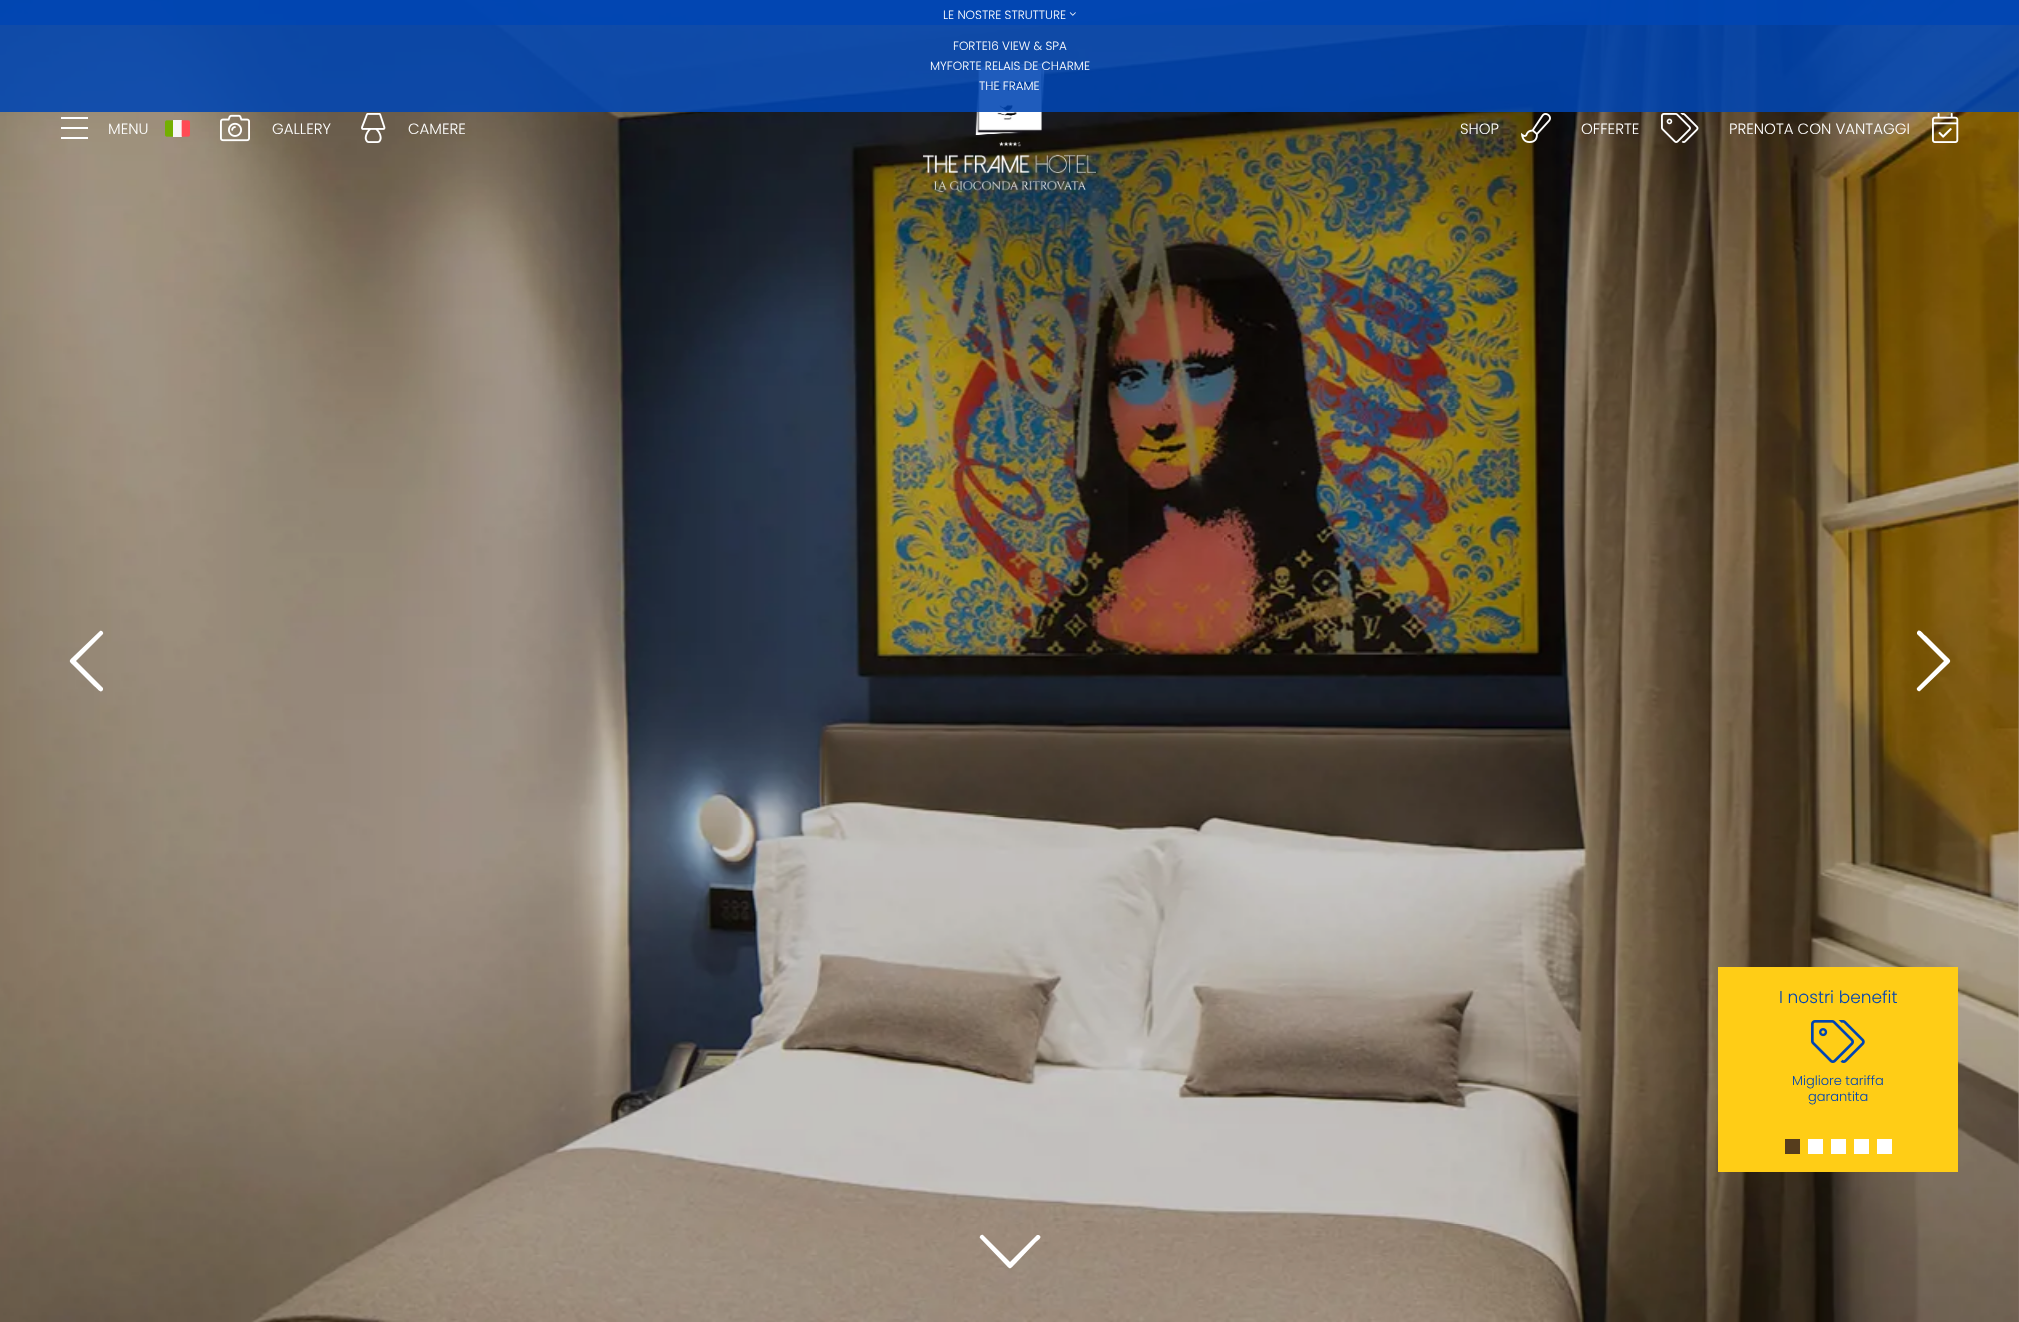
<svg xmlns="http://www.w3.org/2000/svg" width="2019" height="1322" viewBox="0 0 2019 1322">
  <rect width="100%" height="100%" fill="#fff"/>
  <image x="2018" y="0" width="1" height="1322" href="img/2.png"/>
  <image x="0" y="0" width="2019" height="1322" href="img/1.png"/>
  <path d="M102 691L103 690C103 689 103 688 103 688L76 661L103 634C104 632 101 630 100 631L75 655C68 662 68 660 75 667L94 686C97 688 100 693 102 691Z" fill="#fff"/>
  <path d="M1918 631L1917 632C1917 633 1917 634 1917 634L1944 661L1917 688C1916 690 1919 692 1920 691L1945 667C1952 660 1952 662 1945 655L1926 636C1923 634 1920 629 1918 631Z" fill="#fff"/>
  <path d="M0 0h2019v25H0z" fill="#0045b3e0"/>
  <image x="923" y="63" width="174" height="130" href="img/7.png"/>
  <path d="M0 0h2019v112H0z" fill="#0045b3e0"/>
  <image x="1069" y="12" width="7" height="4" href="img/3.png"/>
  <path d="M61 117h27v2H61z" fill="#fff"/>
  <path d="M61 127h27v2H61z" fill="#fff"/>
  <path d="M61 137h27v2H61z" fill="#fff"/>
  <image x="165" y="120" width="25" height="17" href="img/4.png"/>
  <image x="220" y="114" width="30" height="28" href="img/5.png"/>
  <image x="361" y="113" width="25" height="30" href="img/6.png"/>
  <image x="1521" y="113" width="30" height="30" href="img/8.png"/>
  <image x="1661" y="113" width="38" height="30" href="img/9.png"/>
  <image x="1932" y="113" width="27" height="30" href="img/10.png"/>
  <path d="M1718 967h240v205H1718z" fill="#ffcd16"/>
  <image x="1811" y="1020" width="54" height="43" href="img/11.png"/>
  <path d="M1785 1139h15v15H1785z" fill="#563d1d"/>
  <path d="M1808 1139h15v15H1808z" fill="#fff"/>
  <path d="M1831 1139h15v15H1831z" fill="#fff"/>
  <path d="M1854 1139h15v15H1854z" fill="#fff"/>
  <path d="M1877 1139h15v15H1877z" fill="#fff"/>
  <path d="M1040 1236L1039 1235C1038 1235 1037 1235 1037 1235L1010 1262L983 1235C981 1234 979 1237 980 1238L1004 1263C1011 1270 1009 1270 1016 1263L1035 1243C1037 1241 1042 1238 1040 1236Z" fill="#fff"/>
  <g font-family="Poppins" font-size="12" font-weight="300" fill="#fff">
    <text x="943" y="19">LE NOSTRE STRUTTURE</text>
    <text x="953" y="50">FORTE16 VIEW &amp; SPA</text>
    <text x="930" y="70">MYFORTE RELAIS DE CHARME</text>
    <text x="979" y="90">THE FRAME</text>
  </g>
  <g font-family="Poppins" font-size="15" font-weight="300" fill="#fff">
    <text x="108" y="134">MENU</text>
    <text x="272" y="134">GALLERY</text>
    <text x="408" y="134">CAMERE</text>
    <text x="1460" y="134">SHOP</text>
    <text x="1581" y="134">OFFERTE</text>
    <text x="1729" y="134">PRENOTA CON VANTAGGI</text>
  </g>
  <text x="1779" y="1003" font-family="Poppins" font-size="17" font-weight="300" fill="#0044b3">I nostri benefit</text>
  <g font-family="Poppins" font-size="13" font-weight="300" fill="#0044b3">
    <text x="1792" y="1085">Migliore tariffa</text>
    <text x="1808" y="1101">garantita</text>
  </g>
</svg>
